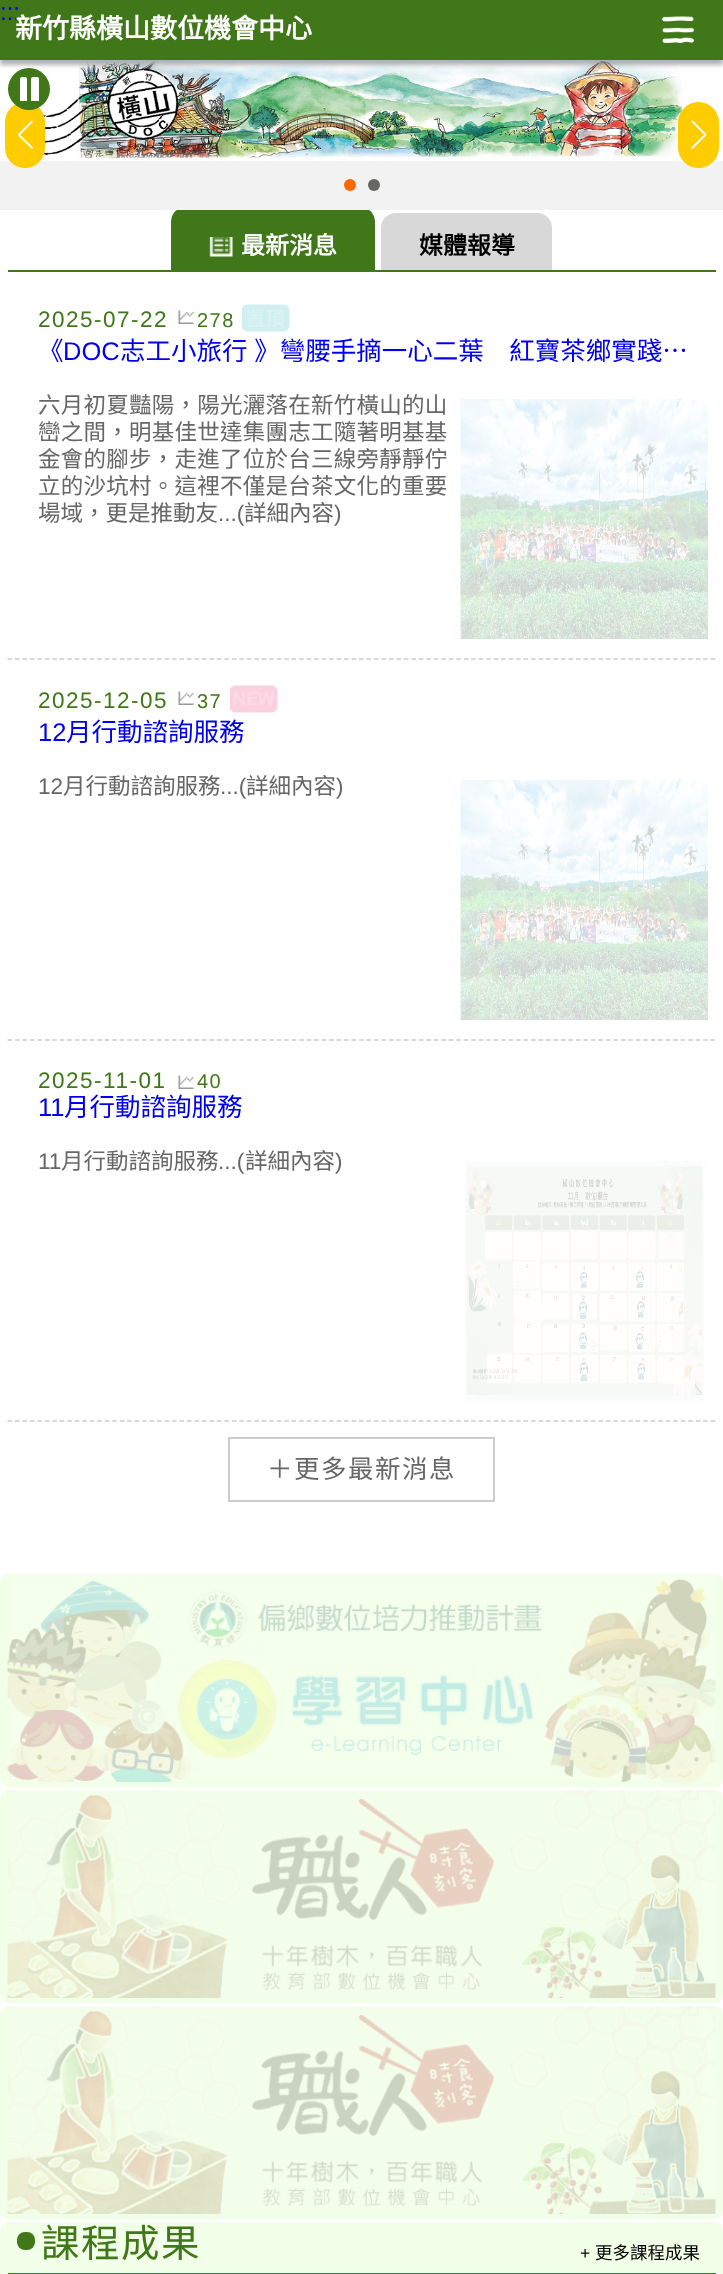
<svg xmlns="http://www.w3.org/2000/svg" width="723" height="2274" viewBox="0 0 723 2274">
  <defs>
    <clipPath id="clip1"><path d="M17 77h24v24H17z"/></clipPath>
  </defs>
  <rect width="100%" height="100%" fill="#fff"/>
  <image x="27" y="60" width="655" height="101" href="img/3.png"/>
  <path d="M186 207H360C368.5 207 375 213.5 375 222V270H171V222C171 213.5 177.5 207 186 207Z" fill="#407718"/>
  <path d="M0 161h723v49H0z" fill="#f2f2f2"/>
  <rect x="5" y="102" width="40" height="66" rx="20" fill="#fc0"/>
  <circle cx="29" cy="89" r="21" fill="#407718"/>
  <path d="M0 5h723v60H0z" fill="#0000004d" filter="blur(2px)"/>
  <path d="M0 0h723v60H0z" fill="#407718"/>
  <image x="662" y="16" width="32" height="27" href="img/1.png"/>
  <image x="18" y="120" width="15" height="29" href="img/2.png"/>
  <rect x="678" y="102" width="41" height="66" rx="20.5" fill="#fc0"/>
  <image x="691" y="120" width="16" height="29" href="img/4.png"/>
  <circle cx="350" cy="185" r="6" fill="#f60"/>
  <circle cx="374" cy="185" r="6" fill="#666665"/>
  <g clip-path="url(#clip1)">
    <rect x="20" y="77" width="7" height="25" rx="2" fill="#fff"/>
    <rect x="31" y="77" width="8" height="25" rx="2" fill="#fff"/>
  </g>
  <path d="M8 270h708v2H8z" fill="#407718"/>
  <image x="209" y="237" width="24" height="20" href="img/5.png"/>
  <path d="M396 213H537C545.5 213 552 219.5 552 228V270H381V228C381 219.5 387.5 213 396 213Z" fill="#d8d8d8"/>
  <path d="M7.5 659H715.5" fill="none" stroke="#ccc" stroke-width="1.5" stroke-dasharray="4.5 2.98"/>
  <image x="178" y="310" width="16" height="14" href="img/6.png"/>
  <image x="242" y="304" width="48" height="28" href="img/7.png"/>
  <image x="460" y="399" width="248" height="240" href="img/8.png"/>
  <path d="M7.5 1040H715.5" fill="none" stroke="#ccc" stroke-width="1.5" stroke-dasharray="4.5 2.98"/>
  <image x="178" y="691" width="16" height="14" href="img/6.png"/>
  <image x="230" y="685" width="48" height="28" href="img/9.png"/>
  <image x="460" y="780" width="248" height="240" href="img/10.png"/>
  <path d="M7.5 1421H715.5" fill="none" stroke="#ccc" stroke-width="1.5" stroke-dasharray="4.5 2.98"/>
  <image x="178" y="1075" width="16" height="14" href="img/6.png"/>
  <image x="465" y="1161" width="240" height="240" href="img/11.png"/>
  <path d="M229 1438h265v63H229z" fill="none" stroke="#ccc" stroke-width="2"/>
  <rect y="1574" width="723" height="213" rx="8" fill="#f2ffe8"/>
  <image x="7" y="1574" width="709" height="208" href="img/12.png"/>
  <rect y="1790" width="723" height="213" rx="8" fill="#f2ffe8"/>
  <image x="7" y="1790" width="709" height="208" href="img/13.png"/>
  <rect y="2006" width="723" height="213" rx="8" fill="#f2ffe8"/>
  <image x="7" y="2006" width="709" height="208" href="img/13.png"/>
  <rect y="2222" width="723" height="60" rx="8" fill="#f2ffe8"/>
  <path d="M8 2273h708v1H8z" fill="#407718"/>
  <rect x="17" y="2232" width="18" height="18" rx="8" fill="#407718"/>
  <text x="0" y="20" font-family="Liberation Sans" font-size="24" fill="#00e">:::</text>
  <text x="15" y="38" font-family="Noto Sans CJK TC" font-size="27" font-weight="bold" fill="#fff">新竹縣橫山數位機會中心</text>
  <text x="241" y="254" font-family="Noto Sans CJK TC" font-size="24" font-weight="bold" fill="#fff">最新消息</text>
  <text x="419" y="254" font-family="Noto Sans CJK TC" font-size="24" font-weight="bold" fill="#000">媒體報導</text>
  <text x="38" y="327" font-family="Liberation Sans" font-size="22.5" letter-spacing="1.5" fill="#407718">2025-07-22</text>
  <text x="197" y="327" font-family="Liberation Sans" font-size="20" letter-spacing="1.5" fill="#407718">278</text>
  <text x="38" y="360" font-family="Noto Sans CJK TC" font-size="25.5" fill="#00e">《</text>
  <text x="63" y="360" font-family="Liberation Sans" font-size="25.5" fill="#00e">DOC</text>
  <text x="120" y="360" word-spacing="1" font-family="Noto Sans CJK TC" font-size="25.5" fill="#00e">志工小旅行 》彎腰手摘一心二葉　紅寶茶鄉實踐…</text>
  <g font-family="Noto Sans CJK TC" font-size="22.5" letter-spacing="0.25" fill="#666">
    <text x="38" y="413">六月初夏豔陽，陽光灑落在新竹橫山的山</text>
    <text x="38" y="440">巒之間，明基佳世達集團志工隨著明基基</text>
    <text x="38" y="467">金會的腳步，走進了位於台三線旁靜靜佇</text>
    <text x="38" y="494">立的沙坑村。這裡不僅是台茶文化的重要</text>
  </g>
  <text x="38" y="521" font-family="Noto Sans CJK TC" font-size="22.5" fill="#666">場域，更是推動友</text>
  <text x="218" y="521" font-family="Liberation Sans" font-size="22.5" fill="#666">...(</text>
  <text x="244" y="521" font-family="Noto Sans CJK TC" font-size="22.5" fill="#666">詳細內容</text>
  <text x="334" y="521" font-family="Liberation Sans" font-size="22.5" fill="#666">)</text>
  <text x="38" y="708" font-family="Liberation Sans" font-size="22.5" letter-spacing="1.5" fill="#407718">2025-12-05</text>
  <text x="197" y="708" font-family="Liberation Sans" font-size="20" letter-spacing="1.5" fill="#407718">37</text>
  <text x="38" y="741" font-family="Liberation Sans" font-size="25.5" fill="#00e">12</text>
  <text x="66" y="741" font-family="Noto Sans CJK TC" font-size="25.5" fill="#00e">月行動諮詢服務</text>
  <text x="38" y="794" font-family="Liberation Sans" font-size="22.5" fill="#666">12</text>
  <text x="63" y="794" font-family="Noto Sans CJK TC" font-size="22.5" fill="#666">月行動諮詢服務</text>
  <text x="220" y="794" font-family="Liberation Sans" font-size="22.5" fill="#666">...(</text>
  <text x="246" y="794" font-family="Noto Sans CJK TC" font-size="22.5" fill="#666">詳細內容</text>
  <text x="336" y="794" font-family="Liberation Sans" font-size="22.5" fill="#666">)</text>
  <text x="38" y="1088" font-family="Liberation Sans" font-size="22.5" letter-spacing="1.5" fill="#407718">2025-11-01</text>
  <text x="197" y="1088" font-family="Liberation Sans" font-size="20" letter-spacing="1.5" fill="#407718">40</text>
  <text x="38" y="1116" font-family="Liberation Sans" font-size="25.5" fill="#00e">11</text>
  <text x="64" y="1116" font-family="Noto Sans CJK TC" font-size="25.5" fill="#00e">月行動諮詢服務</text>
  <text x="38" y="1169" font-family="Liberation Sans" font-size="22.5" fill="#666">11</text>
  <text x="61" y="1169" font-family="Noto Sans CJK TC" font-size="22.5" fill="#666">月行動諮詢服務</text>
  <text x="218" y="1169" font-family="Liberation Sans" font-size="22.5" fill="#666">...(</text>
  <text x="245" y="1169" font-family="Noto Sans CJK TC" font-size="22.5" fill="#666">詳細內容</text>
  <text x="335" y="1169" font-family="Liberation Sans" font-size="22.5" fill="#666">)</text>
  <text x="267" y="1478" font-family="Noto Sans CJK TC" font-size="25.5" letter-spacing="1.5" fill="#666">＋更多最新消息</text>
  <text x="41" y="2257" font-family="Noto Sans CJK TC" font-size="38.5" letter-spacing="1.5" fill="#407718">課程成果</text>
  <text x="580" y="2259" font-family="Liberation Sans" font-size="17.5" fill="#000">+</text>
  <text x="595" y="2259" font-family="Noto Sans CJK TC" font-size="17.5" fill="#000">更多課程成果</text>
</svg>
